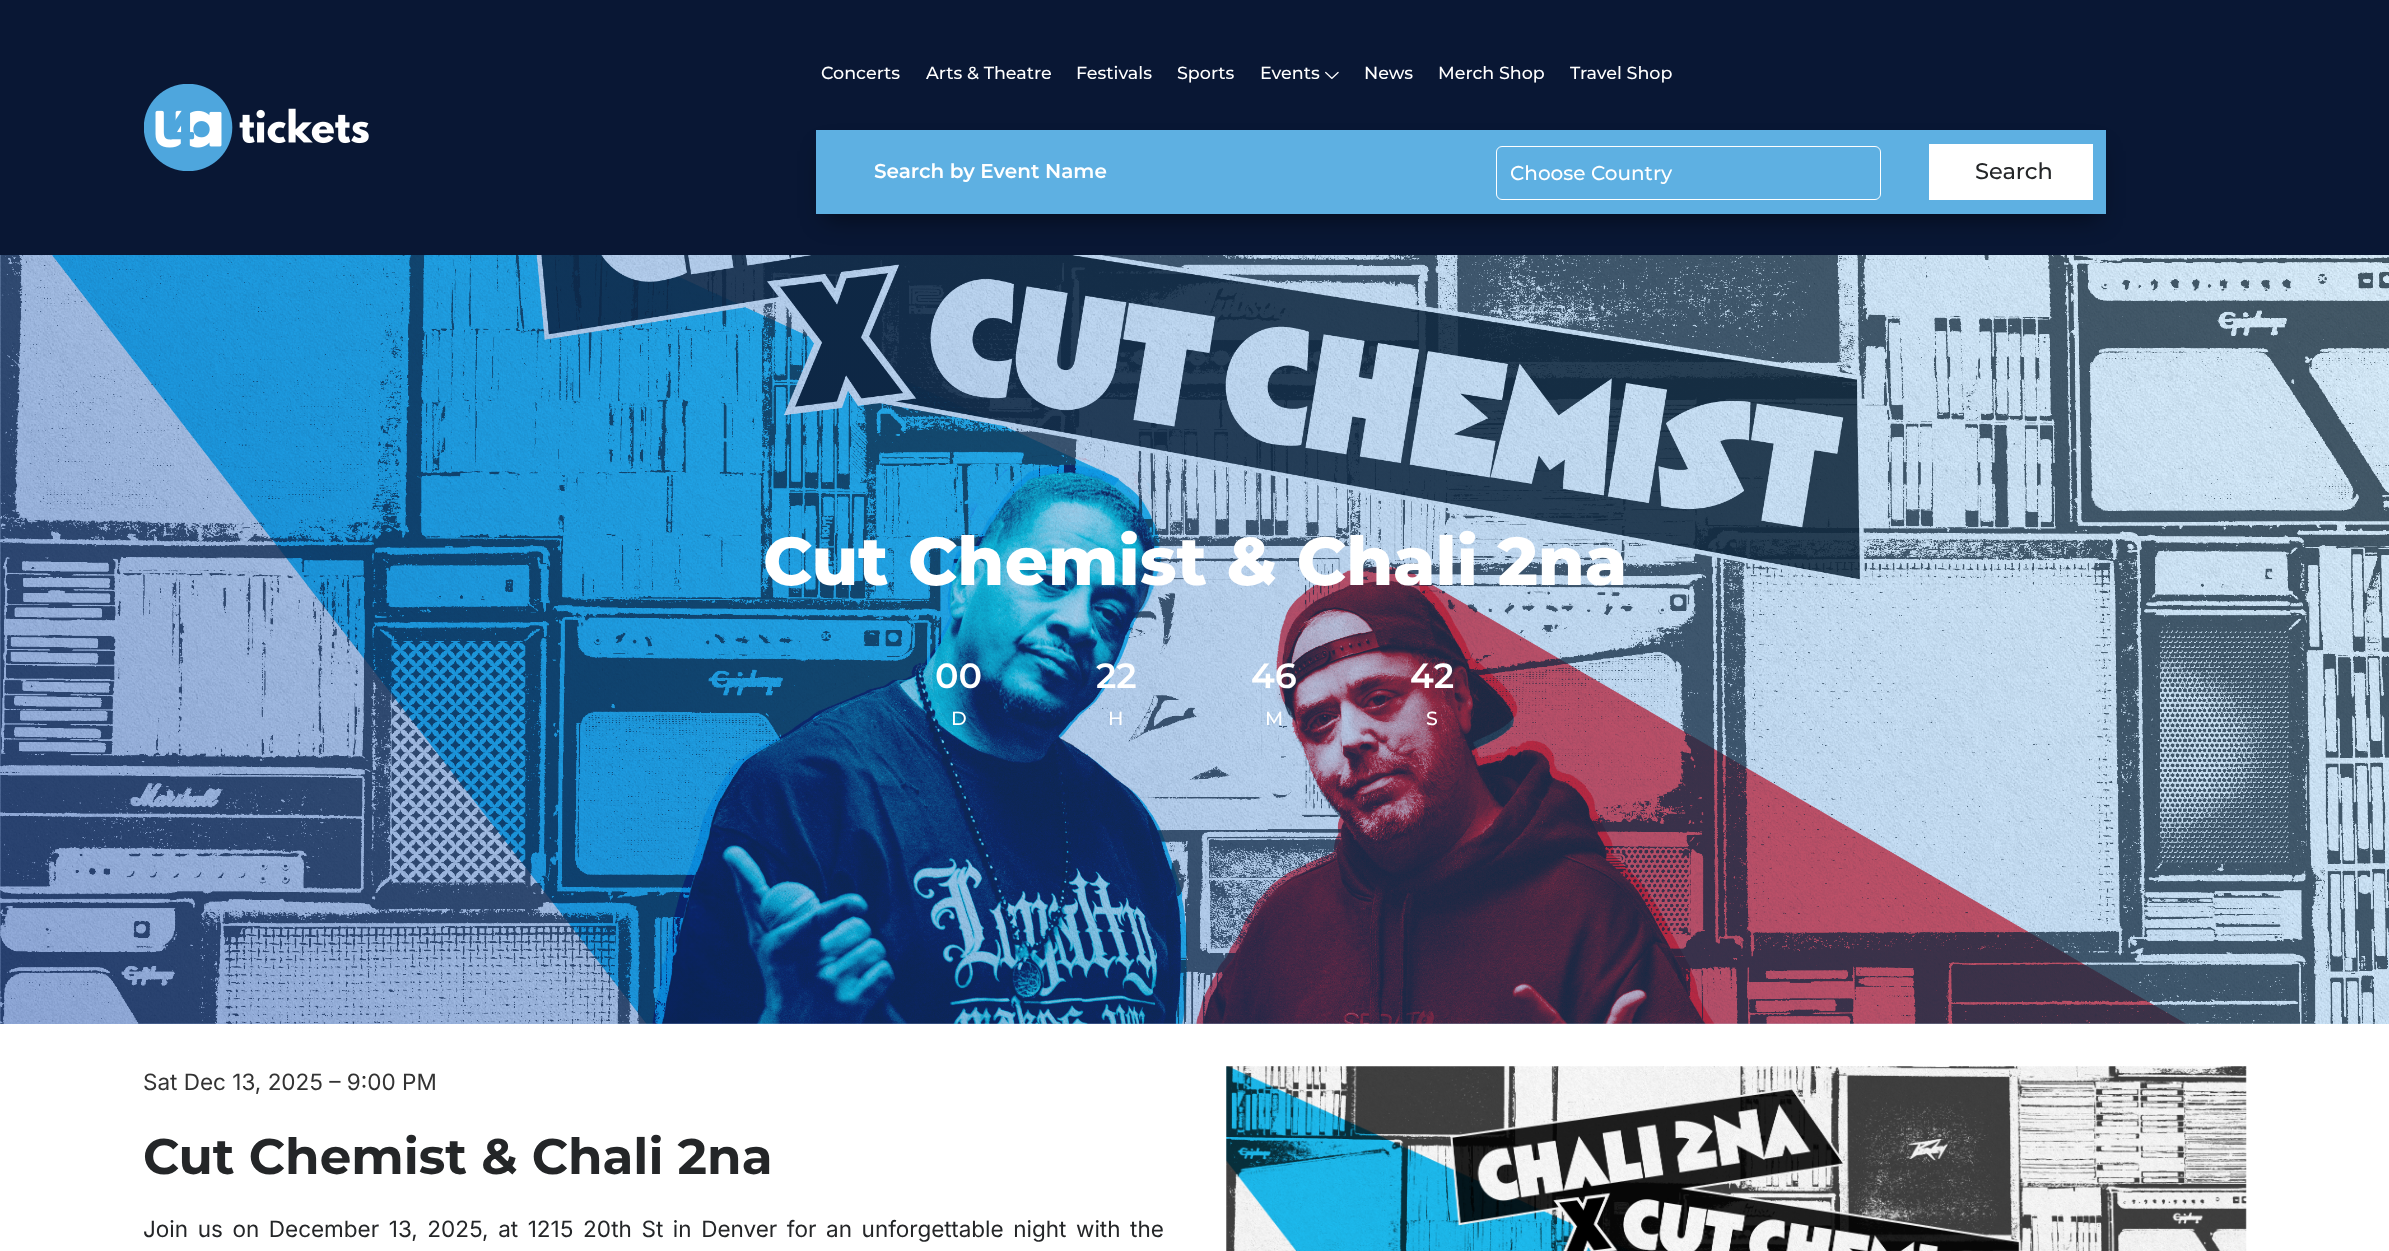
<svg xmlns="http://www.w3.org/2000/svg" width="2389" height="1251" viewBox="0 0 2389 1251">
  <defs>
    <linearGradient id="g1" gradientUnits="userSpaceOnUse" x1="2086" y1="-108" x2="304" y2="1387"><stop offset="0" stop-color="#50b5fa" stop-opacity="0.2"/><stop offset="1" stop-color="#083fa9" stop-opacity="0.45"/></linearGradient>
  </defs>
  <rect width="100%" height="100%" fill="#fff"/>
  <path d="M0 0h2389v255H0z" fill="#091734"/>
  <image x="144" y="84" width="225" height="87" href="img/1.png"/>
  <image x="1325" y="71" width="14" height="8" href="img/2.png"/>
  <path d="M825 151h1273v67H825z" fill="#00000080" filter="blur(12.5px)"/>
  <path d="M816 130h1290v84H816z" fill="#5eb0e2"/>
  <rect x="1496.5" y="146.5" width="384" height="53" rx="5.5" fill="none" stroke="#fff"/>
  <path d="M1929 144h164v56H1929z" fill="#fff"/>
  <image x="0" y="255" width="2389" height="769" href="img/3.png"/>
  <path d="M0 255h2389v769H0z" fill="url(#g1)"/>
  <image x="1226" y="1066" width="1021" height="185" href="img/4.png"/>
  <g font-family="Montserrat" font-size="17.5" font-weight="500" fill="#fff">
    <text x="821" y="79">Concerts</text>
    <text x="926" y="79">Arts &amp; Theatre</text>
    <text x="1076" y="79">Festivals</text>
    <text x="1177" y="79">Sports</text>
    <text x="1260" y="79">Events</text>
    <text x="1364" y="79">News</text>
    <text x="1438" y="79">Merch Shop</text>
    <text x="1570" y="79">Travel Shop</text>
  </g>
  <text x="874" y="178" font-family="Montserrat" font-size="20" font-weight="600" fill="#fff">Search by Event Name</text>
  <text x="1510" y="180" font-family="Montserrat" font-size="20" font-weight="500" fill="#fff">Choose Country</text>
  <text x="1975" y="179" font-family="Montserrat" font-size="22.5" font-weight="500" fill="#242628">Search</text>
  <text x="763" y="585" font-family="Montserrat" font-size="67.5" font-weight="800" fill="#fff">Cut Chemist &amp; Chali 2na</text>
  <text x="935" y="688" font-family="Montserrat" font-size="35" font-weight="600" fill="#fff">00</text>
  <text x="951" y="725" font-family="Montserrat" font-size="19" font-weight="500" fill="#fff">D</text>
  <text x="1096" y="688" font-family="Montserrat" font-size="35" font-weight="600" fill="#fff">22</text>
  <text x="1108" y="725" font-family="Montserrat" font-size="19" font-weight="500" fill="#fff">H</text>
  <text x="1251" y="688" font-family="Montserrat" font-size="35" font-weight="600" fill="#fff">46</text>
  <text x="1265" y="725" font-family="Montserrat" font-size="19" font-weight="500" fill="#fff">M</text>
  <text x="1410" y="688" font-family="Montserrat" font-size="35" font-weight="600" fill="#fff">42</text>
  <text x="1426" y="725" font-family="Montserrat" font-size="19" font-weight="500" fill="#fff">S</text>
  <text x="143" y="1090" font-family="Inter" font-size="22.5" fill="#333">Sat Dec 13, 2025 – 9:00 PM</text>
  <text x="143" y="1174" font-family="Montserrat" font-size="50" font-weight="bold" fill="#242628">Cut Chemist &amp; Chali 2na</text>
  <text x="143" y="1237" word-spacing="3.25" font-family="Inter" font-size="22.5" fill="#242628">Join us on December 13, 2025, at 1215 20th St in Denver for an unforgettable night with the</text>
</svg>
